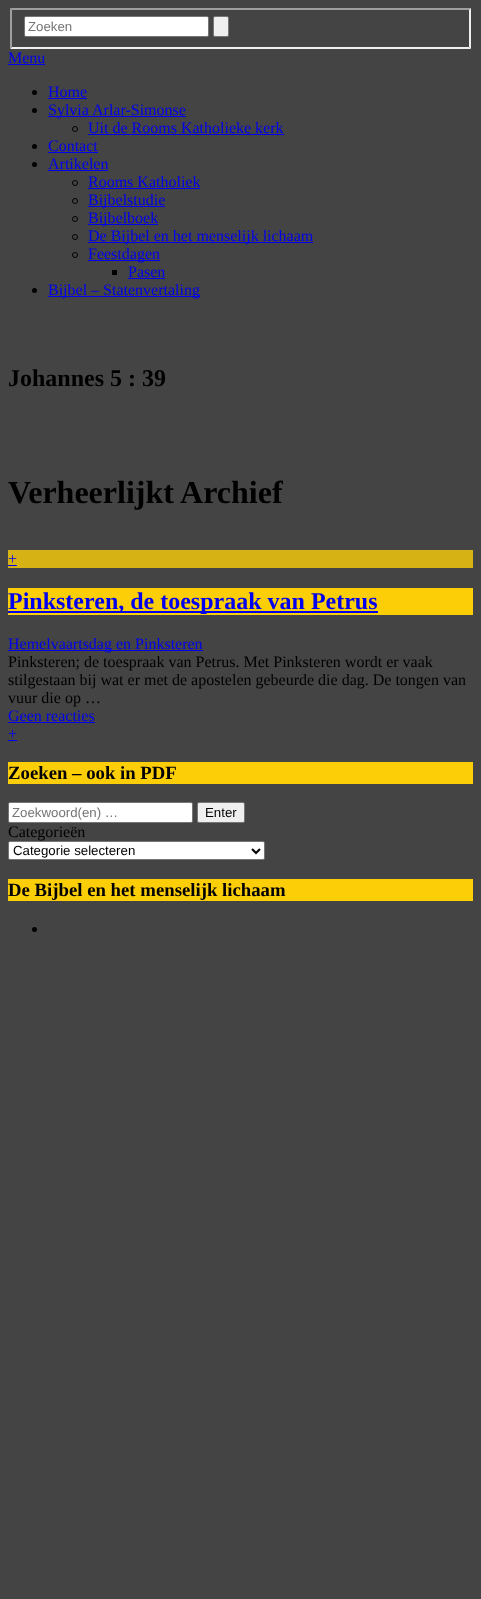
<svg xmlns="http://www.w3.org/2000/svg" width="481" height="1599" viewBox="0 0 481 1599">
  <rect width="100%" height="100%" fill="#444"/>
  <path d="M10 8H471L469 10H12Z" fill="#9f9f9f"/>
  <path d="M471 8V49L469 47V10Z" fill="#efefef"/>
  <path d="M471 49H10L12 47H469Z" fill="#efefef"/>
  <path d="M10 49V8L12 10V47Z" fill="#9f9f9f"/>
  <rect x="24.5" y="16.5" width="184" height="20" rx="1.5" fill="#fff" stroke="#767676"/>
  <rect x="213.5" y="16.5" width="15" height="20" rx="1.5" fill="#efefef" stroke="#767676"/>
  <path d="M8 64h37v1H8z" fill="#00e"/>
  <circle cx="34.5" cy="92.5" r="2.5" fill="#000"/>
  <path d="M48 98h39v1H48z" fill="#00e"/>
  <circle cx="34.5" cy="110.5" r="2.5" fill="#000"/>
  <path d="M48 116h138v1H48z" fill="#00e"/>
  <circle cx="75" cy="129" r="2.5" fill="none" stroke="#000"/>
  <path d="M88 134h196v1H88z" fill="#00e"/>
  <circle cx="34.5" cy="146.5" r="2.5" fill="#000"/>
  <path d="M48 152h50v1H48z" fill="#00e"/>
  <circle cx="34.5" cy="164.5" r="2.5" fill="#000"/>
  <path d="M48 170h60v1H48z" fill="#00e"/>
  <circle cx="75" cy="183" r="2.5" fill="none" stroke="#000"/>
  <path d="M88 188h112v1H88z" fill="#00e"/>
  <circle cx="75" cy="201" r="2.5" fill="none" stroke="#000"/>
  <path d="M88 206h77v1H88z" fill="#00e"/>
  <circle cx="75" cy="219" r="2.5" fill="none" stroke="#000"/>
  <path d="M88 224h70v1H88z" fill="#00e"/>
  <circle cx="75" cy="237" r="2.5" fill="none" stroke="#000"/>
  <path d="M88 242h225v1H88z" fill="#00e"/>
  <circle cx="75" cy="255" r="2.5" fill="none" stroke="#000"/>
  <path d="M88 260h72v1H88z" fill="#00e"/>
  <path d="M112 270h5v5H112z" fill="#000"/>
  <path d="M128 278h37v1H128z" fill="#00e"/>
  <circle cx="34.5" cy="290.5" r="2.5" fill="#000"/>
  <path d="M48 296h152v1H48z" fill="#00e"/>
  <path d="M8 550h465v18H8z" fill="#d7b214"/>
  <path d="M8 565h9v1H8z" fill="#00e"/>
  <path d="M8 588h465v27H8z" fill="#fcce08"/>
  <path d="M8 611h370v2H8z" fill="#00e"/>
  <path d="M8 650h195v1H8z" fill="#00e"/>
  <path d="M8 722h87v1H8z" fill="#00e"/>
  <path d="M8 740h9v1H8z" fill="#00e"/>
  <path d="M8 762h465v22H8z" fill="#fcce08"/>
  <rect x="8.5" y="802.5" width="184" height="20" rx="1.5" fill="#fff" stroke="#767676"/>
  <rect x="197.5" y="802.5" width="47" height="20" rx="1.5" fill="#efefef" stroke="#767676"/>
  <rect x="8.5" y="841.5" width="256" height="18" rx="1.5" fill="#fff" stroke="#767676"/>
  <path d="M252 849L256 853L260 849" fill="none" stroke="#000" stroke-width="2"/>
  <path d="M8 879h465v22H8z" fill="#fcce08"/>
  <circle cx="34.5" cy="929.5" r="2.5" fill="#000"/>
  <text x="28" y="31" font-family="Liberation Sans" font-size="13.25" fill="#757575">Zoeken</text>
  <g font-family="Liberation Serif" font-size="16" fill="#00e">
    <text x="8" y="63">Menu</text>
    <text x="48" y="97">Home</text>
    <text x="48" y="115">Sylvia Arlar-Simonse</text>
    <text x="88" y="133">Uit de Rooms Katholieke kerk</text>
    <text x="48" y="151">Contact</text>
    <text x="48" y="169">Artikelen</text>
    <text x="88" y="187">Rooms Katholiek</text>
    <text x="88" y="205">Bijbelstudie</text>
    <text x="88" y="223">Bijbelboek</text>
    <text x="88" y="241">De Bijbel en het menselijk lichaam</text>
    <text x="88" y="259">Feestdagen</text>
    <text x="128" y="277">Pasen</text>
    <text x="48" y="295">Bijbel – Statenvertaling</text>
  </g>
  <text x="8" y="386" font-family="Liberation Serif" font-size="24" font-weight="bold" fill="#000">Johannes 5 : 39</text>
  <text x="8" y="503" font-family="Liberation Serif" font-size="32" font-weight="bold" fill="#000">Verheerlijkt Archief</text>
  <text x="8" y="564" font-family="Liberation Serif" font-size="16" fill="#00e">+</text>
  <text x="8" y="609" font-family="Liberation Serif" font-size="24" font-weight="bold" fill="#00e">Pinksteren, de toespraak van Petrus</text>
  <text x="8" y="649" font-family="Liberation Serif" font-size="16" fill="#00e">Hemelvaartsdag en Pinksteren</text>
  <g font-family="Liberation Serif" font-size="16" fill="#000">
    <text x="8" y="667">Pinksteren; de toespraak van Petrus. Met Pinksteren wordt er vaak</text>
    <text x="8" y="685">stilgestaan bij wat er met de apostelen gebeurde die dag. De tongen van</text>
    <text x="8" y="703">vuur die op …</text>
  </g>
  <g font-family="Liberation Serif" font-size="16" fill="#00e">
    <text x="8" y="721">Geen reacties</text>
    <text x="8" y="739">+</text>
  </g>
  <text x="8" y="779" font-family="Liberation Serif" font-size="18.75" font-weight="bold" fill="#000">Zoeken – ook in PDF</text>
  <text x="12" y="817" font-family="Liberation Sans" font-size="13.25" fill="#757575">Zoekwoord(en) …</text>
  <text x="205" y="817" font-family="Liberation Sans" font-size="13.25" fill="#000">Enter</text>
  <text x="8" y="837" font-family="Liberation Serif" font-size="16" fill="#000">Categorieën</text>
  <text x="13" y="855" font-family="Liberation Sans" font-size="13.25" fill="#000">Categorie selecteren</text>
  <text x="8" y="896" font-family="Liberation Serif" font-size="18.75" font-weight="bold" fill="#000">De Bijbel en het menselijk lichaam</text>
</svg>
